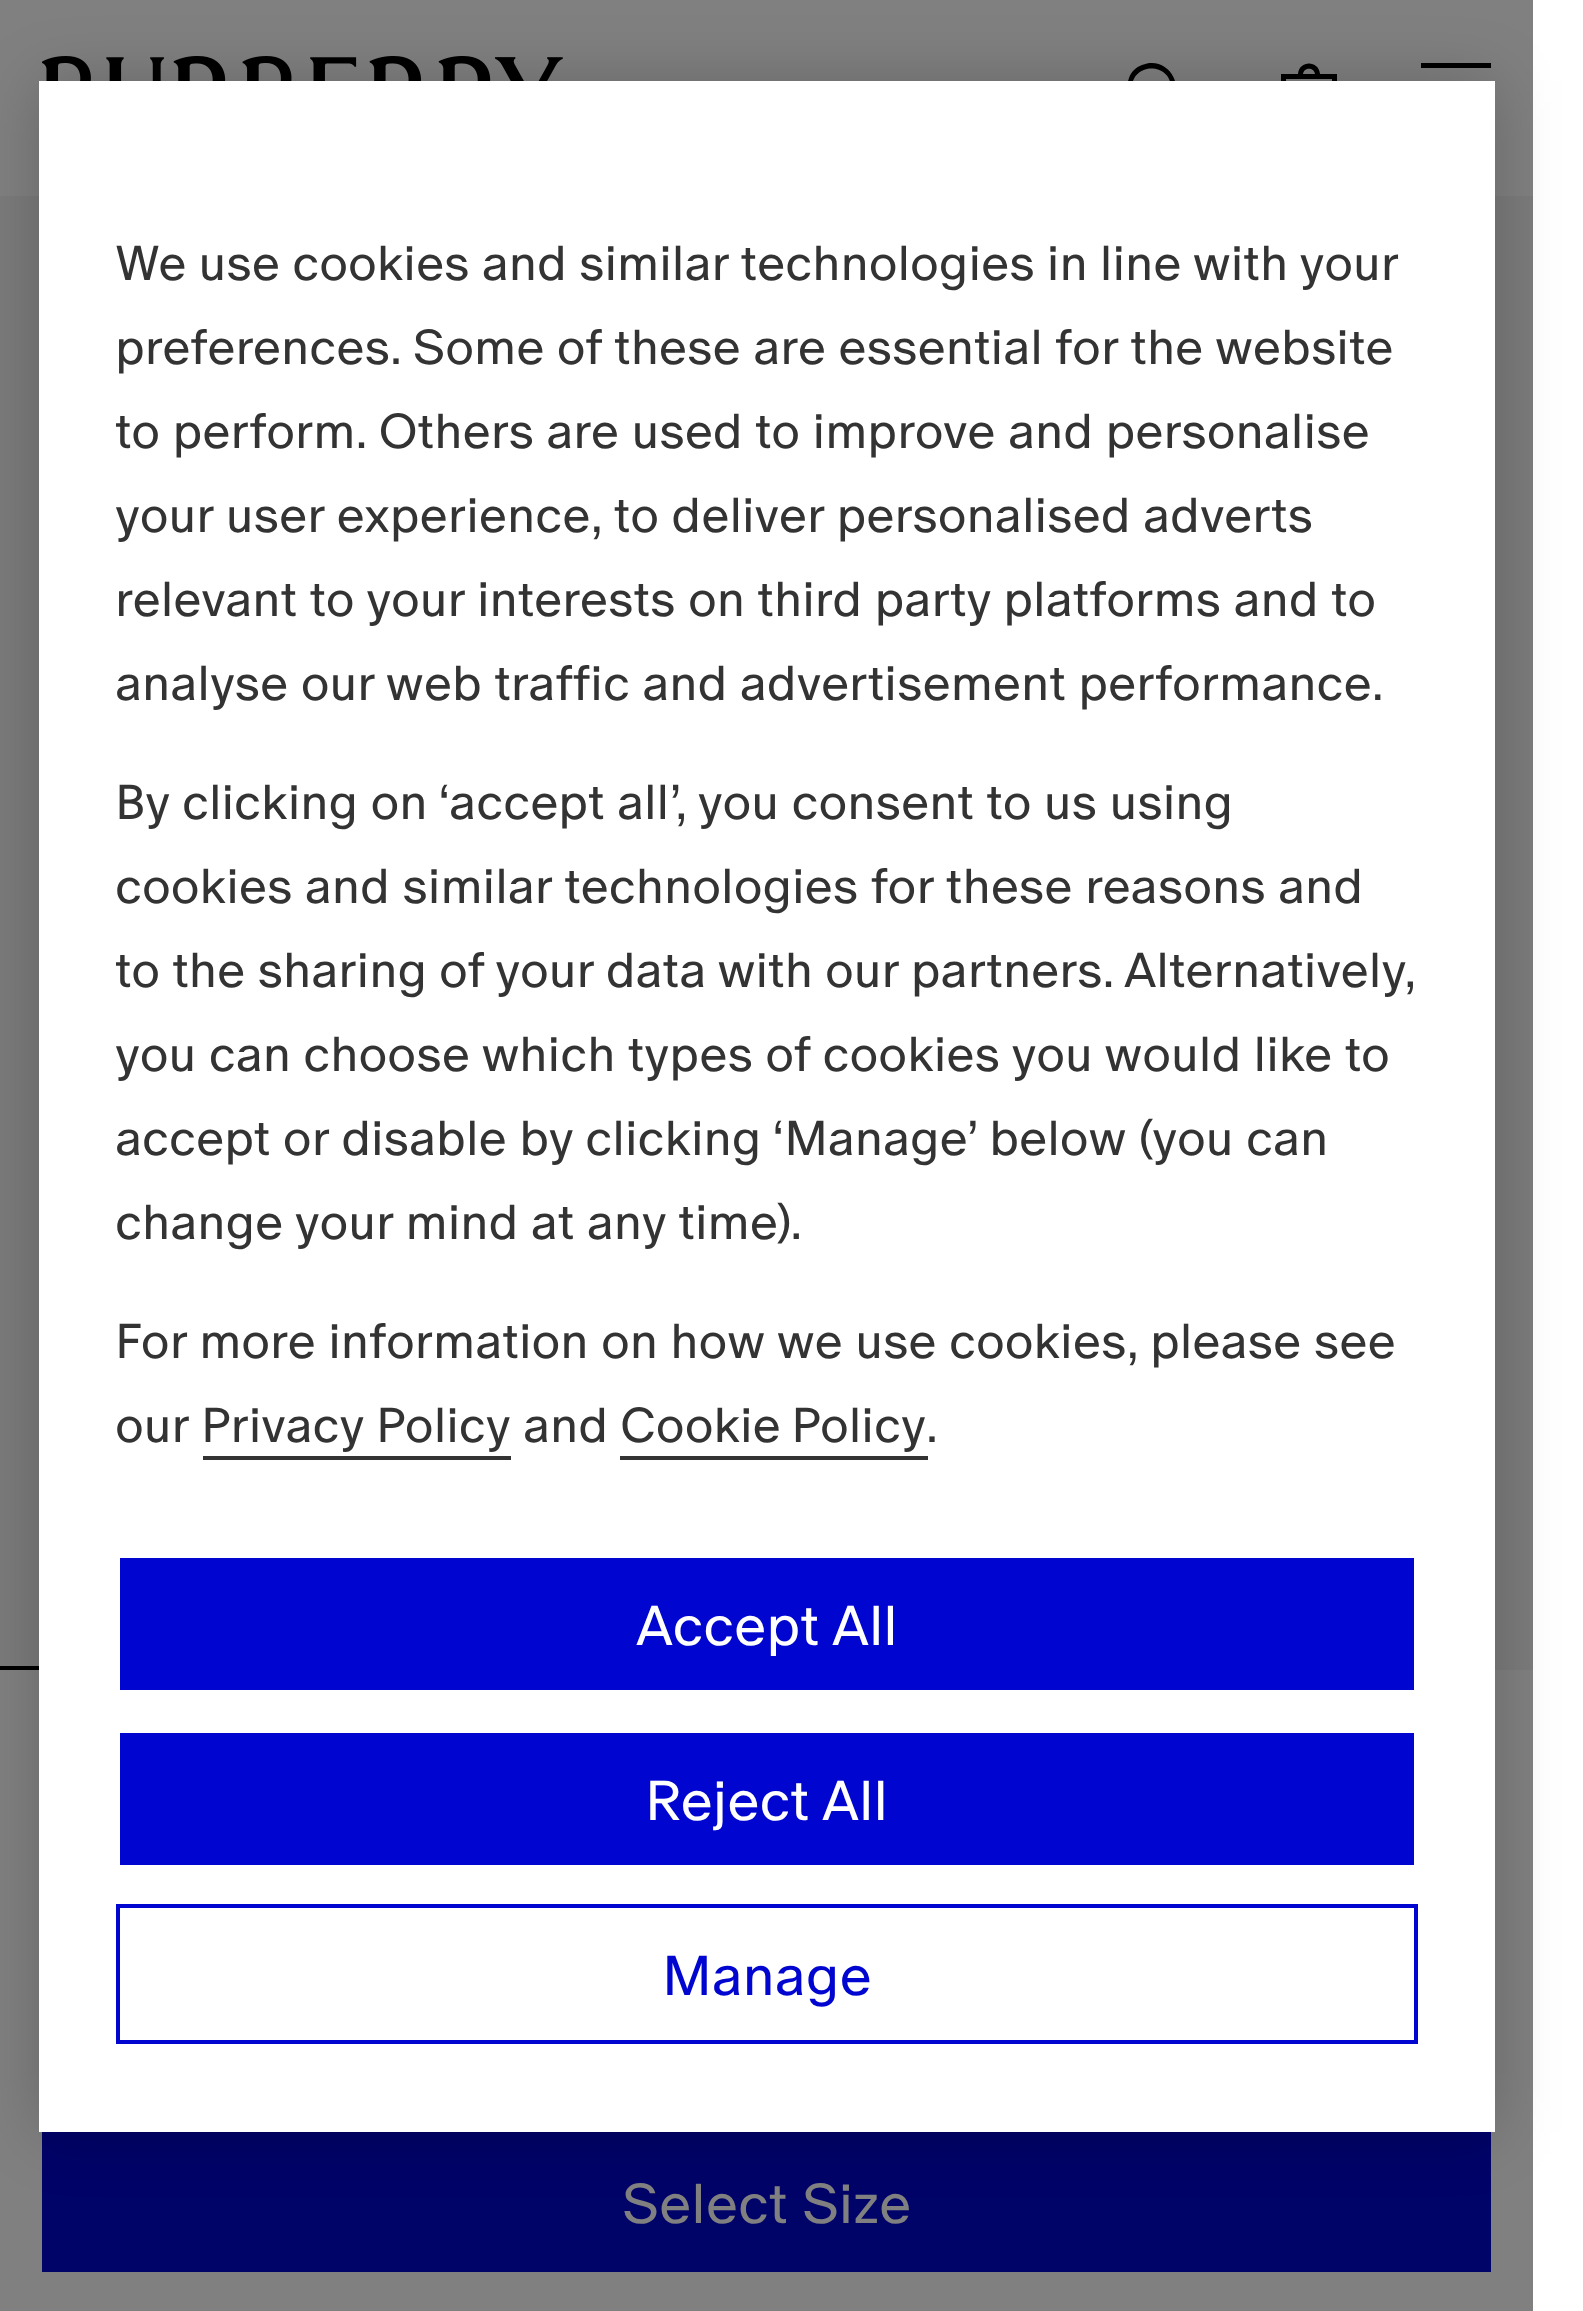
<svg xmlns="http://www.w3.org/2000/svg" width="1583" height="2311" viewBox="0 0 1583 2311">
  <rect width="100%" height="100%" fill="#fff"/>
  <path d="M0 0h1533v196H0z" fill="#808080"/>
  <image x="42" y="56" width="521" height="25" href="img/1.png"/>
  <path d="M1171 88C1171 113 1132 113 1132 88C1132 62 1171 62 1171 88ZM1167 107C1156 115 1139 113 1131 101C1127 94 1126 86 1129 78C1131 72 1136 67 1142 65C1166 55 1186 84 1171 103L1197 129L1193 133Z" fill="#000" fill-rule="evenodd"/>
  <path d="M1303 74C1304 67 1314 67 1315 74ZM1298 74C1299 60 1319 60 1320 74H1337V133H1281V74ZM1286 79H1332V128H1286Z" fill="#000" fill-rule="evenodd"/>
  <path d="M1421 68H1491V63H1421ZM1421 133H1491V128H1421Z" fill="#000" fill-rule="evenodd"/>
  <path d="M0 196h1533v1474H0z" fill="#7b7b7b"/>
  <path d="M0 1666h39v4H0z" fill="#000"/>
  <path d="M0 1670h1533v641H0z" fill="#808080"/>
  <path d="M42 2132h1449v140H42z" fill="#000368"/>
  <path d="M39 81h1456v2051H39z" fill="#00000033" filter="blur(31.5px)"/>
  <path d="M39 81h1456v2051H39z" fill="#fff"/>
  <path d="M620 1456h308v4H620z" fill="#333"/>
  <path d="M203 1456h308v4H203z" fill="#333"/>
  <path d="M120 1558h1294v132H120z" fill="#0006cf"/>
  <path d="M120 1733h1294v132H120z" fill="#0006cf"/>
  <path d="M118 1906h1298v136H118z" fill="none" stroke="#0006cf" stroke-width="4"/>
  <g font-family="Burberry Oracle" font-size="49" fill="#333">
    <text x="115" y="280" word-spacing="-0.25">We use cookies and similar technologies in line with your</text>
    <text x="115" y="364">preferences. Some of these are essential for the website</text>
    <text x="115" y="448">to perform. Others are used to improve and personalise</text>
    <text x="115" y="532">your user experience, to deliver personalised adverts</text>
    <text x="115" y="616">relevant to your interests on third party platforms and to</text>
    <text x="115" y="700">analyse our web traffic and advertisement performance.</text>
    <text x="115" y="819">By clicking on ‘accept all’, you consent to us using</text>
    <text x="115" y="903">cookies and similar technologies for these reasons and</text>
    <text x="115" y="987" word-spacing="-0.25">to the sharing of your data with our partners. Alternatively,</text>
    <text x="115" y="1071">you can choose which types of cookies you would like to</text>
    <text x="115" y="1155">accept or disable by clicking ‘Manage’ below (you can</text>
    <text x="115" y="1239">change your mind at any time).</text>
    <text x="115" y="1358">For more information on how we use cookies, please see</text>
    <text x="115" y="1442">our Privacy Policy</text>
    <text x="523" y="1442">and</text>
    <text x="620" y="1442" word-spacing="-2">Cookie Policy</text>
    <text x="926" y="1442">.</text>
  </g>
  <g font-family="Burberry Oracle" font-size="56" fill="#fff">
    <text x="636" y="1645">Accept All</text>
    <text x="645" y="1820">Reject All</text>
  </g>
  <text x="662" y="1995" font-family="Burberry Oracle" font-size="56" fill="#0006cf">Manage</text>
  <text x="622" y="2223" font-family="Burberry Oracle" font-size="56" fill="#808080">Select Size</text>
</svg>
